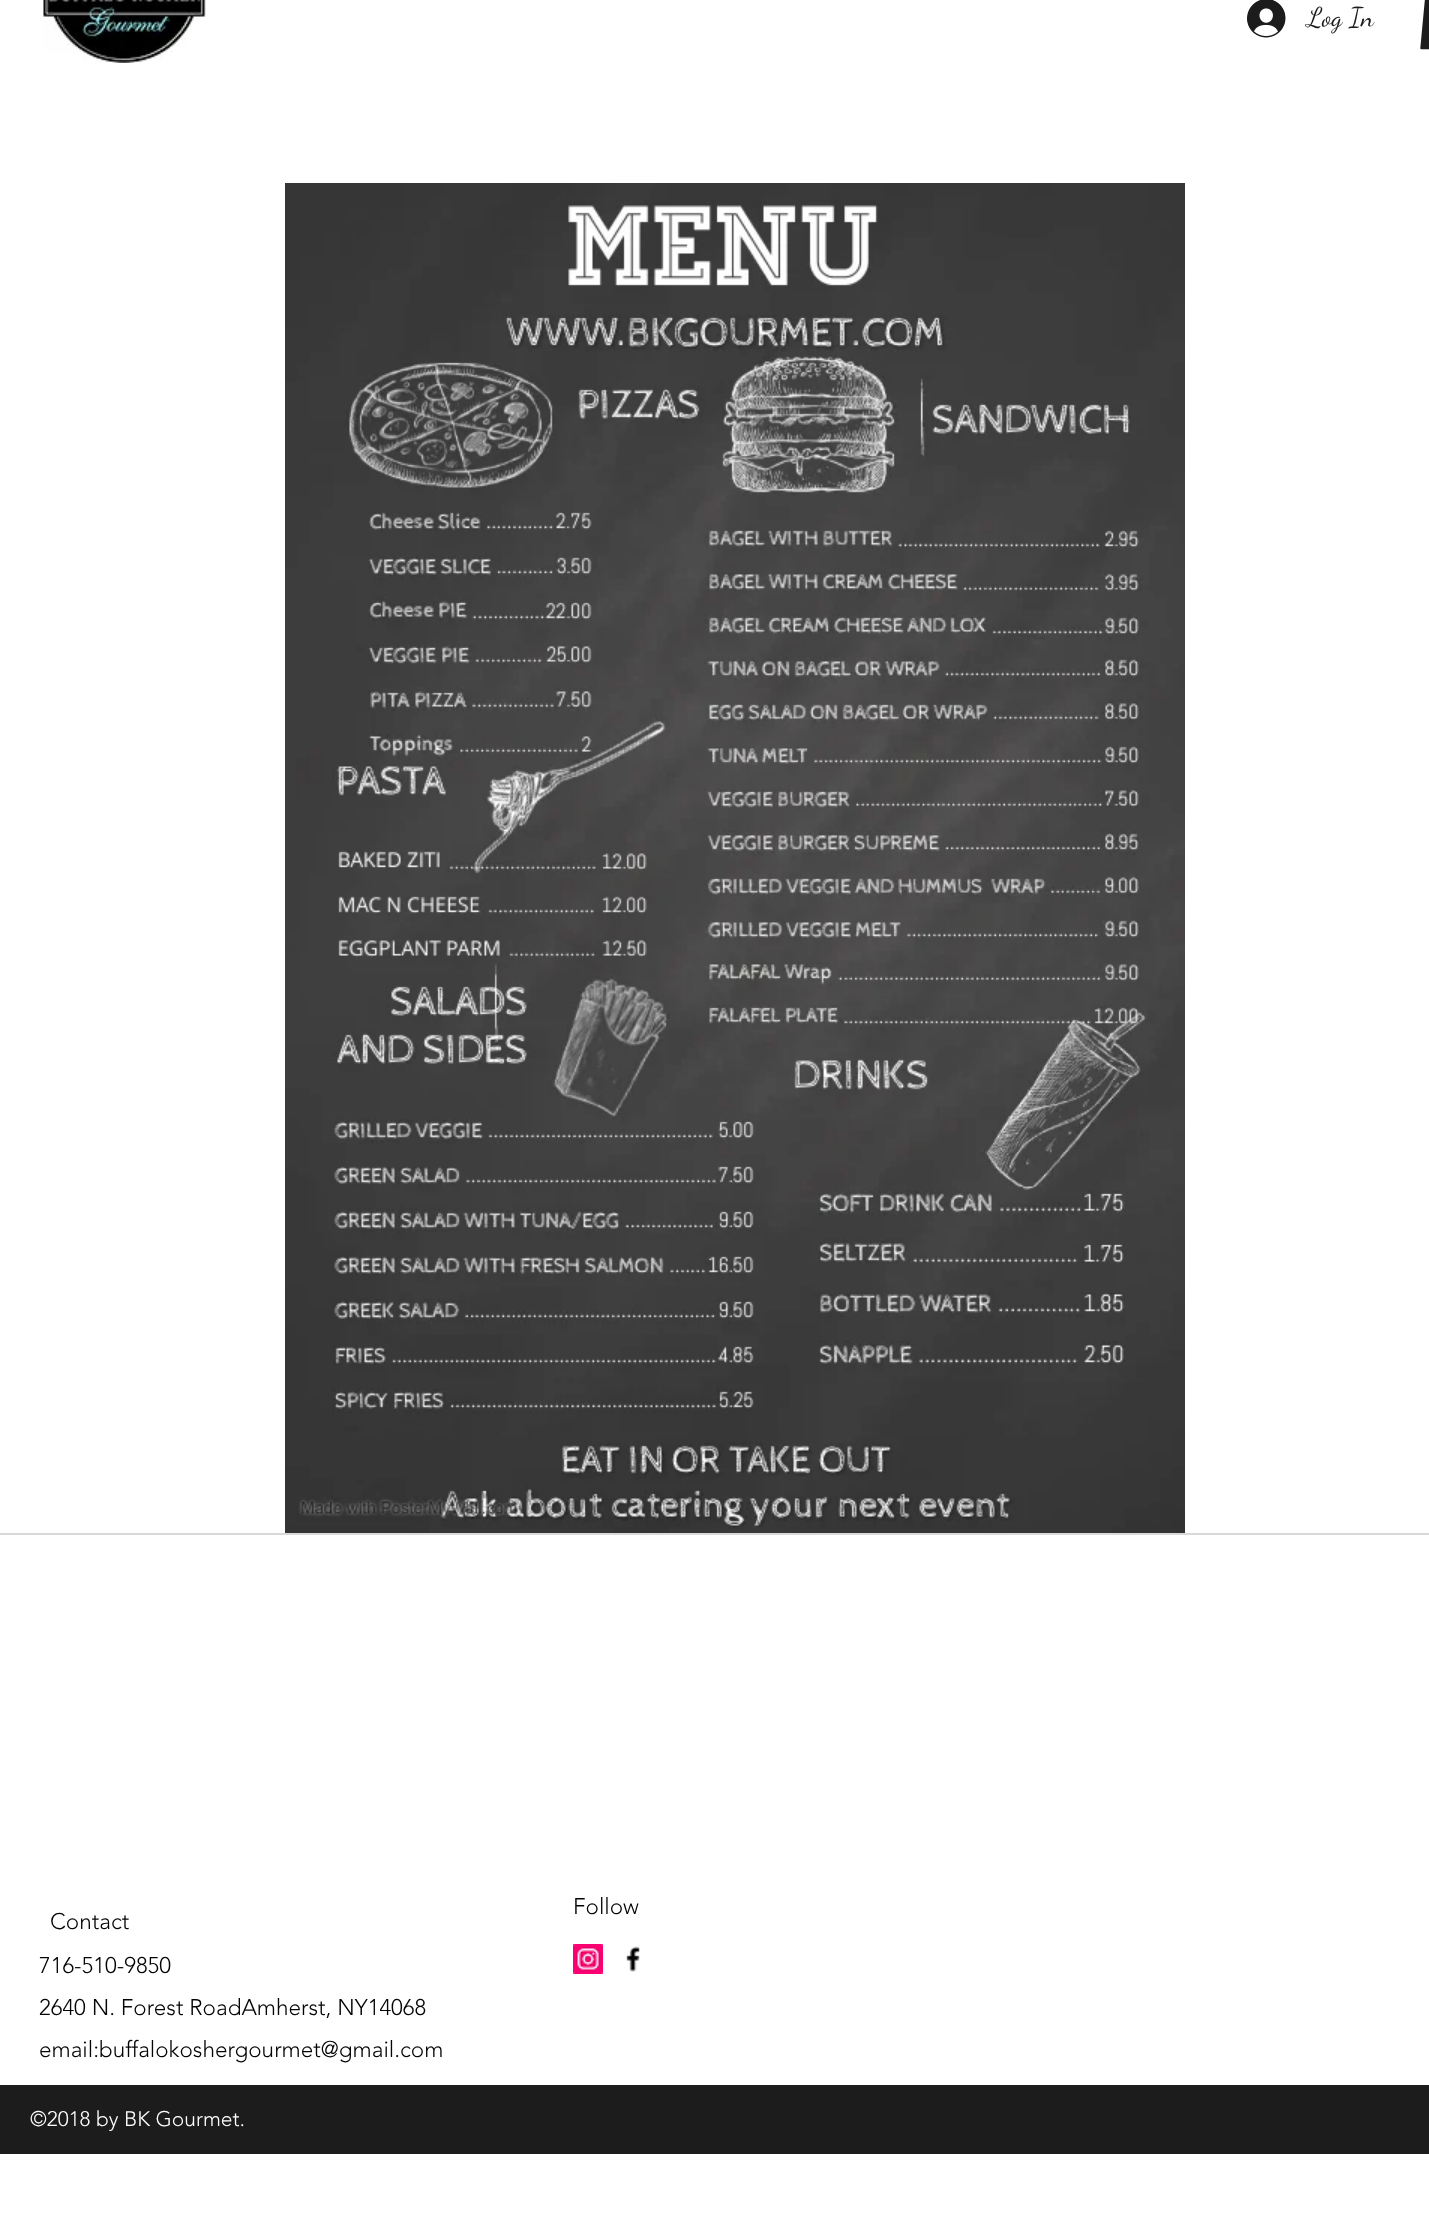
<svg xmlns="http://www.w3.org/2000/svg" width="1429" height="2217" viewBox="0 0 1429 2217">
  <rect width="100%" height="100%" fill="#fff"/>
  <image x="43" y="0" width="163" height="63" href="img/1.png"/>
  <image x="1247" y="0" width="39" height="38" href="img/2.png"/>
  <image x="1420" y="0" width="9" height="50" href="img/3.png"/>
  <image x="285" y="183" width="900" height="1350" href="img/4.png"/>
  <path d="M0 1533h1429v2H0z" fill="#d9d9da"/>
  <image x="573" y="1944" width="30" height="30" href="img/5.png"/>
  <image x="626" y="1946" width="14" height="26" href="img/6.png"/>
  <path d="M0 2085h1429v69H0z" fill="#1c1c1c"/>
  <text x="1307" y="26" font-family="Dancing Script" font-size="27" fill="#1c1c1c">Log In</text>
  <g font-family="'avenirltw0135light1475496'" font-size="22.5" font-weight="300" fill="#040405">
    <text x="573" y="1914">Follow</text>
    <text x="50" y="1929">Contact</text>
    <text x="39" y="1973">716-510-9850</text>
    <text x="39" y="2015">2640 N. Forest RoadAmherst, NY14068</text>
    <text x="39" y="2057">email:buffalokoshergourmet@gmail.com</text>
  </g>
  <text x="30" y="2126" font-family="'avenirltw0135light1475496'" font-size="21" font-weight="300" fill="#fff">©2018 by BK Gourmet.</text>
</svg>
